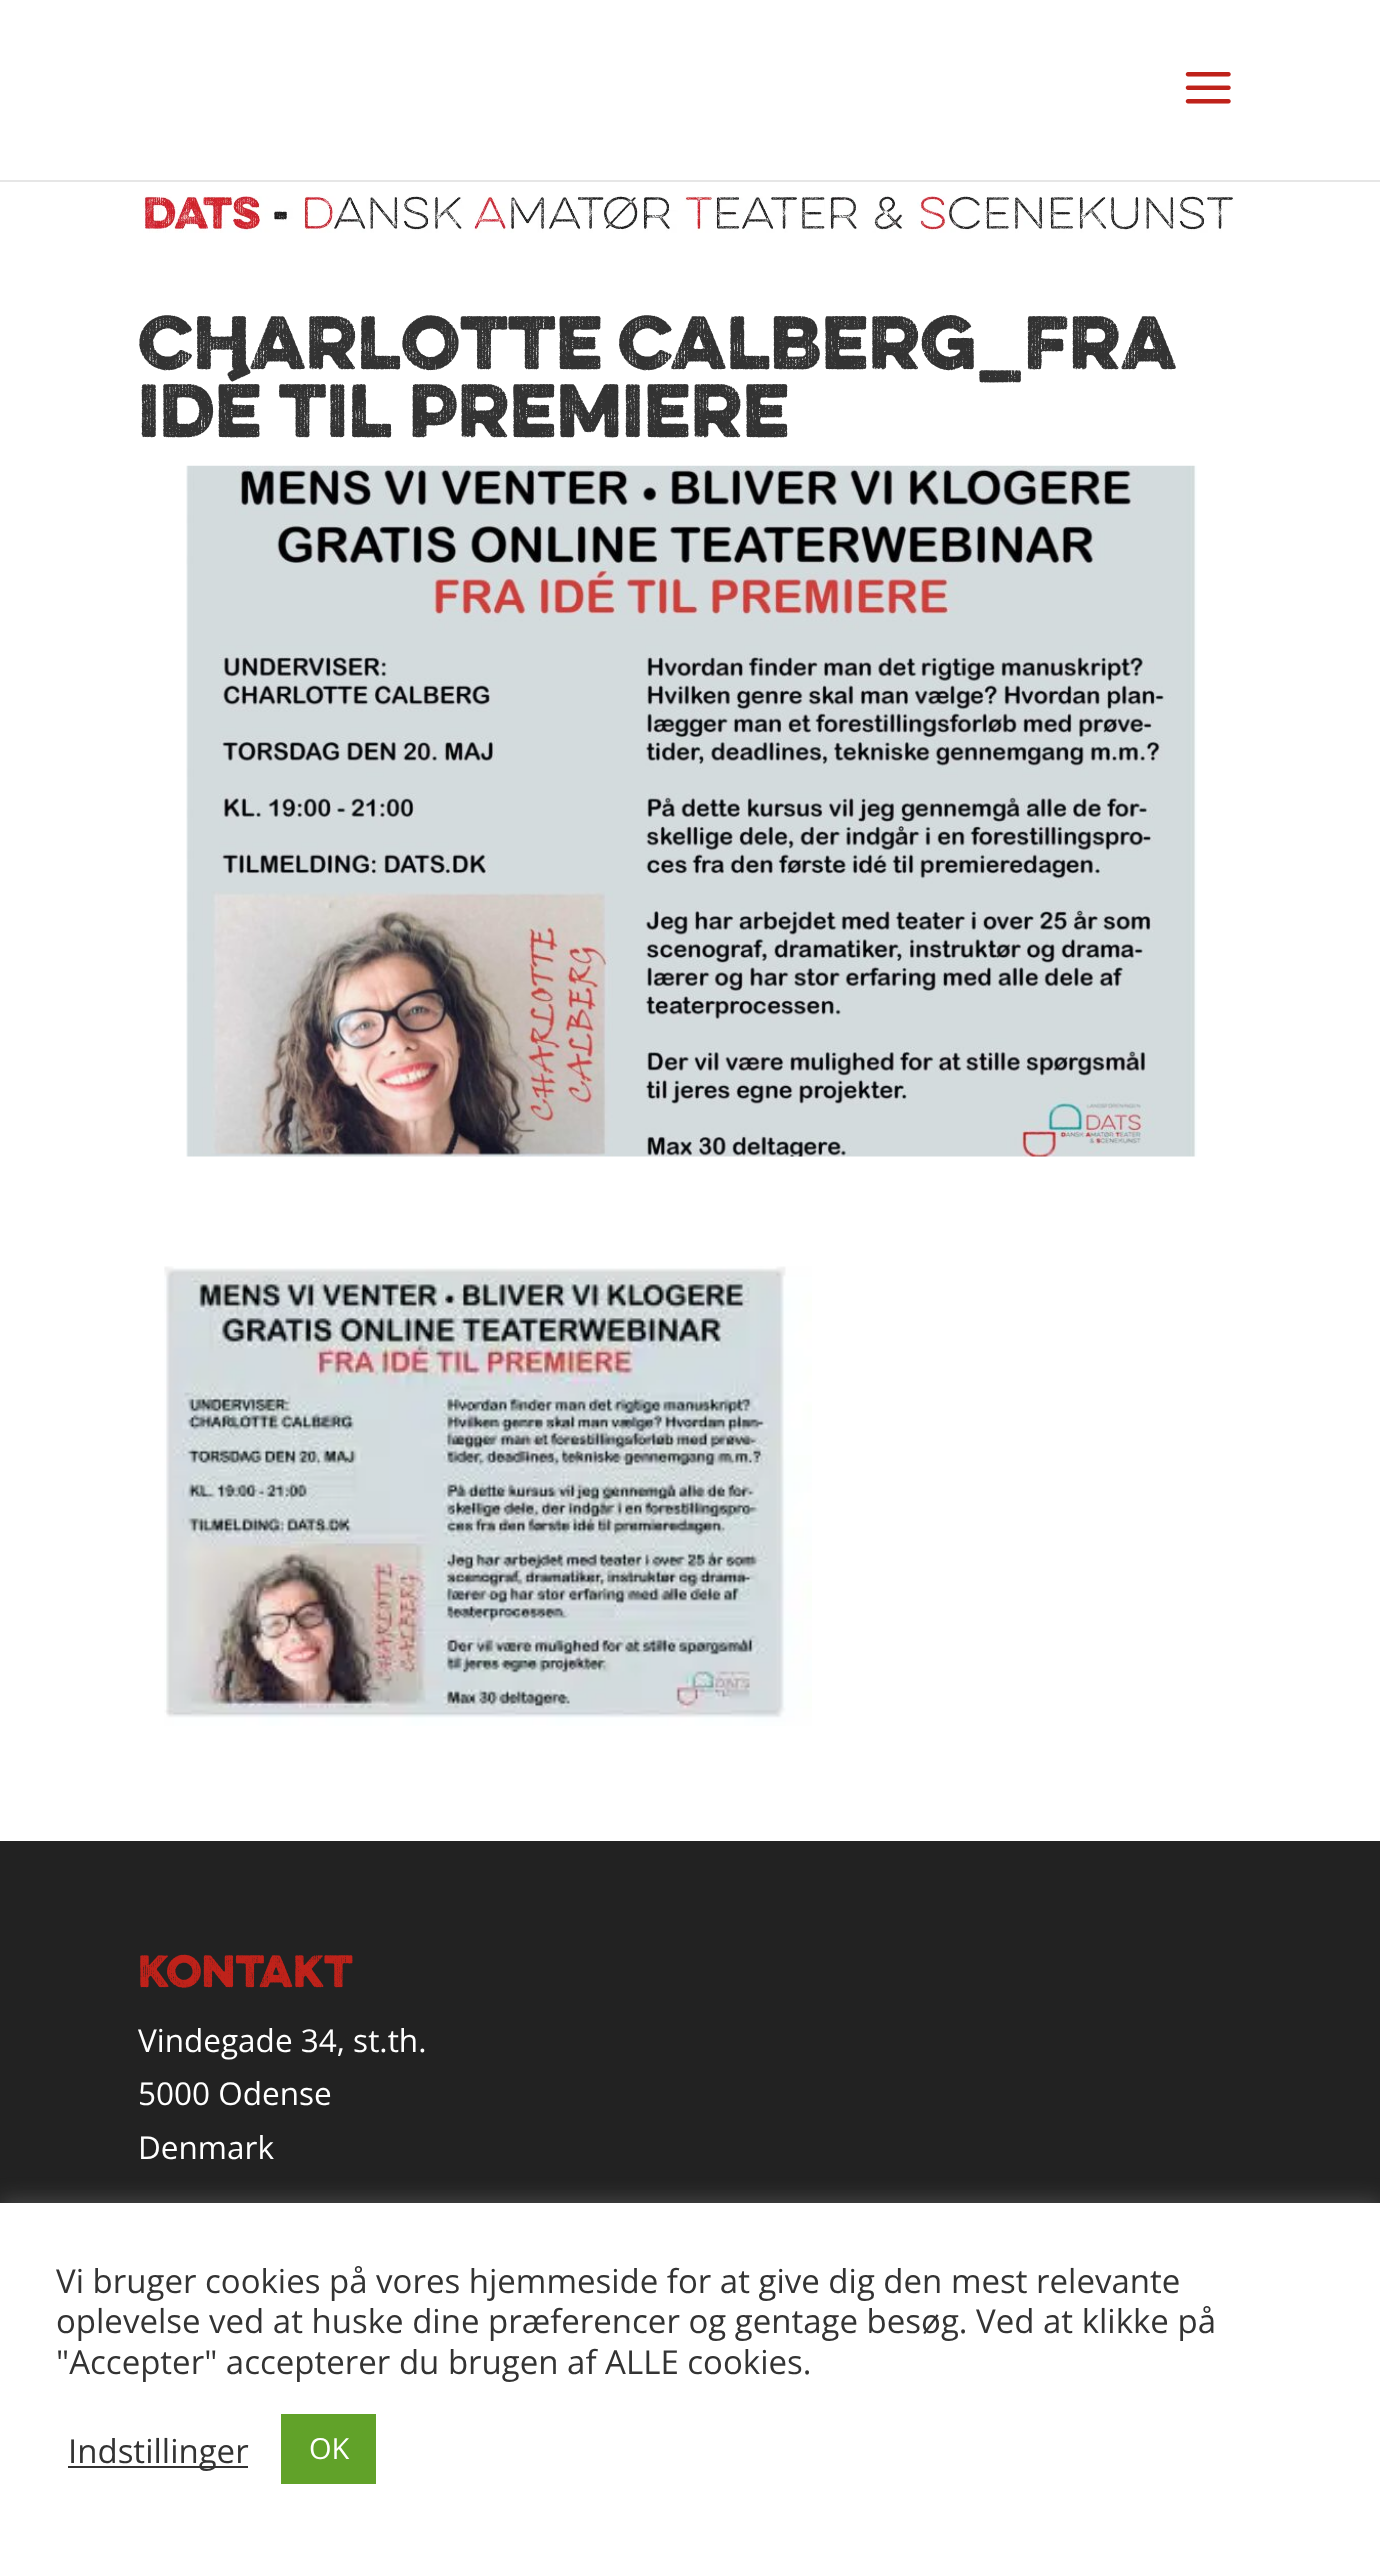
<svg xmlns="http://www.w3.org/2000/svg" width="1380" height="2551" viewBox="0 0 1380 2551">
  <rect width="100%" height="100%" fill="#fff"/>
  <path d="M0 180V182H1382V2V180Z" fill="#e6e6e6"/>
  <image x="1185" y="72" width="46" height="32" href="img/1.png"/>
  <image x="143" y="196" width="1091" height="37" href="img/2.png"/>
  <image x="186" y="465" width="1011" height="692" href="img/3.png"/>
  <image x="164" y="1266" width="648" height="460" href="img/4.png"/>
  <path d="M0 1841h1380v362H0z" fill="#222"/>
  <path d="M0 2201h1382v348H0z" fill="#acabab4d" filter="blur(11px)"/>
  <path d="M0 2203h1380v348H0z" fill="#fff"/>
  <path d="M68 2466h180v2H68z" fill="#333"/>
  <path d="M281 2414h95v70H281z" fill="#61a229"/>
  <g font-family="'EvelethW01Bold'" font-size="67.5" font-weight="bold" fill="#333">
    <text x="138" y="369" word-spacing="-4">Charlotte Calberg_Fra</text>
    <text x="138" y="437">idé til premiere</text>
  </g>
  <text x="138" y="1987" font-family="'EvelethW01Bold'" font-size="40.5" font-weight="bold" fill="#bf221a">Kontakt</text>
  <g font-family="Open Sans" font-size="31.5" fill="#fff">
    <text x="138" y="2052">Vindegade 34, st.th.</text>
    <text x="138" y="2105">5000 Odense</text>
    <text x="138" y="2159">Denmark</text>
  </g>
  <g font-family="Open Sans" font-size="33" fill="#333">
    <text x="56" y="2293">Vi bruger cookies på vores hjemmeside for at give dig den mest relevante</text>
    <text x="56" y="2333">oplevelse ved at huske dine præferencer og gentage besøg. Ved at klikke på</text>
    <text x="56" y="2374">"Accepter" accepterer du brugen af ALLE cookies.</text>
    <text x="68" y="2463">Indstillinger</text>
  </g>
  <text x="309" y="2459" font-family="Open Sans" font-size="29" fill="#fff">OK</text>
</svg>
